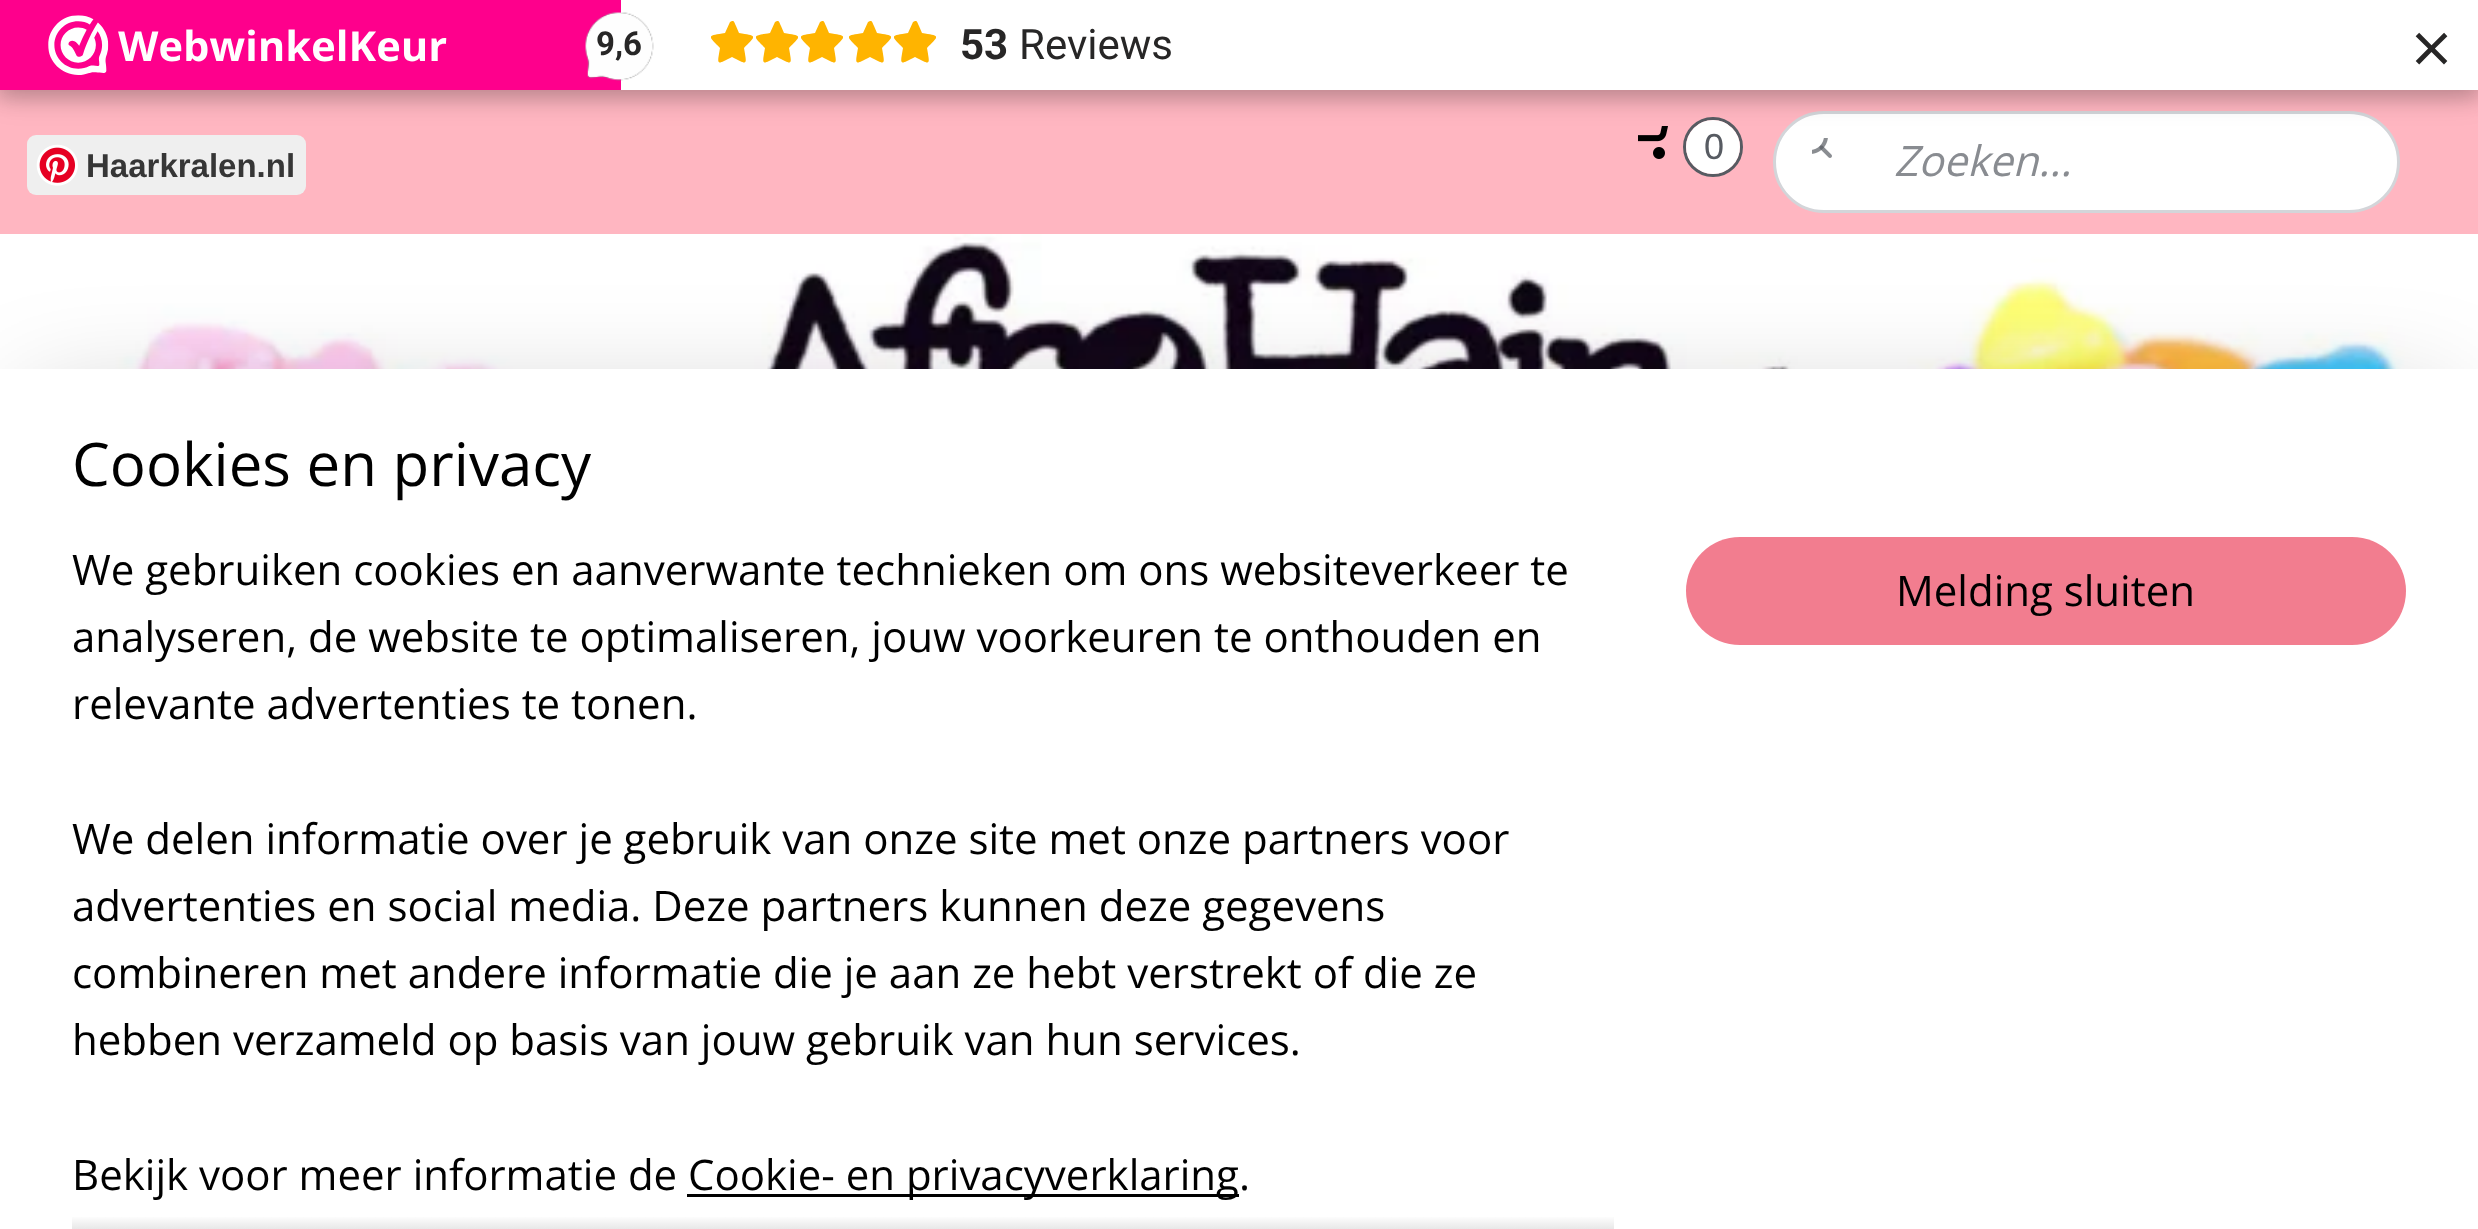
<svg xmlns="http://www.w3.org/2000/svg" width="2478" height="1229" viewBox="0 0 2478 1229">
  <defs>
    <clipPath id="clip1"><path d="M711 21h42v42H711z"/></clipPath>
    <clipPath id="clip2"><path d="M756 21h42v42H756z"/></clipPath>
    <clipPath id="clip3"><path d="M801 21h42v42H801z"/></clipPath>
    <clipPath id="clip4"><path d="M849 21h42v42H849z"/></clipPath>
    <clipPath id="clip5"><path d="M894 21h42v42H894z"/></clipPath>
    <linearGradient id="g1" gradientUnits="userSpaceOnUse" x1="843" y1="1212" x2="843" y2="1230"><stop offset="0.2" stop-color="#fff"/><stop offset="1" stop-color="#e6e6e6"/></linearGradient>
  </defs>
  <rect width="100%" height="100%" fill="#fff"/>
  <path d="M0 90h2478v144H0z" fill="#ffb6c1"/>
  <image x="1638" y="126" width="30" height="33" href="img/4.png"/>
  <circle cx="1713" cy="147" r="28.5" fill="none" stroke="#575b62" stroke-width="3"/>
  <circle cx="1713" cy="147" r="27" fill="#fff"/>
  <rect x="1774.5" y="112.5" width="624" height="99" rx="49.5" fill="#fff" stroke="#d3d5d9" stroke-width="3"/>
  <path d="M-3 -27h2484v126H-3z" fill="#00000026" filter="blur(9px)"/>
  <rect x="27" y="135" width="279" height="60" rx="9" fill="#efefef"/>
  <image x="1812" y="138" width="20" height="20" href="img/5.png"/>
  <path d="M0 6h2478v90H0z" fill="#00000026" filter="blur(15px)"/>
  <path d="M0 0h621v90H0z" fill="#fe008c"/>
  <image x="48" y="15" width="399" height="60" href="img/1.png"/>
  <path d="M621 0h1857v90H621z" fill="#fff"/>
  <g clip-path="url(#clip1)">
    <path d="M730 22L732 21C734 20 735 24 736 26L739 33C757 36 757 35 744 48C747 66 748 65 732 57C716 65 717 66 720 48C707 35 707 36 725 33Z" fill="#ffb400"/>
  </g>
  <g clip-path="url(#clip2)">
    <path d="M775 22L777 21C779 20 780 24 781 26L784 33C802 36 802 35 789 48C792 66 793 65 777 57C761 65 762 66 765 48C752 35 752 36 770 33Z" fill="#ffb400"/>
  </g>
  <g clip-path="url(#clip3)">
    <path d="M820 22L822 21C824 20 825 24 826 26L829 33C847 36 847 35 834 48C837 66 838 65 822 57C806 65 807 66 810 48C797 35 797 36 815 33Z" fill="#ffb400"/>
  </g>
  <g clip-path="url(#clip4)">
    <path d="M868 22L870 21C872 20 873 24 874 26L877 33C895 36 895 35 882 48C885 66 886 65 870 57C854 65 855 66 858 48C845 35 845 36 863 33Z" fill="#ffb400"/>
  </g>
  <g clip-path="url(#clip5)">
    <path d="M913 22L915 21C917 20 918 24 919 26L922 33C940 36 940 35 927 48C930 66 931 65 915 57C899 65 900 66 903 48C890 35 890 36 908 33Z" fill="#ffb400"/>
  </g>
  <image x="585" y="12" width="69" height="69" href="img/2.png"/>
  <image x="36" y="144" width="42" height="42" href="img/3.png"/>
  <image x="25" y="234" width="2445" height="135" href="img/6.png"/>
  <path d="M30 399h2418v801H30z" fill="#00000033" filter="blur(54px)"/>
  <path d="M0 369h2478v860H0z" fill="#fff"/>
  <path d="M687 1194h552v3H687z" fill="#000"/>
  <path d="M72 1217h1542v12H72z" fill="url(#g1)"/>
  <rect x="1686" y="537" width="720" height="108" rx="54" fill="#f27d8f"/>
  <text x="960" y="59" font-family="Roboto" font-size="42" font-weight="bold" fill="#272626">53</text>
  <text x="1019" y="59" font-family="Roboto" font-size="42" fill="#272626">Reviews</text>
  <text x="2411" y="74" font-family="Open Sans" font-size="72" fill="#272626">×</text>
  <text x="596" y="55" font-family="Roboto" font-size="33" font-weight="bold" fill="#272626">9,6</text>
  <text x="86" y="177" font-family="Liberation Sans" font-size="33" font-weight="bold" fill="#363636">Haarkralen.nl</text>
  <text x="1704" y="159" font-family="Liberation Sans" font-size="36" fill="#575b62">0</text>
  <text x="1894" y="176" font-family="Open Sans" font-size="42" font-style="italic" fill="#898c91">Zoeken...</text>
  <text x="72" y="486" font-family="Open Sans" font-size="60" fill="#000">Cookies en privacy</text>
  <g font-family="Open Sans" font-size="42" fill="#000">
    <text x="72" y="585">We gebruiken cookies en aanverwante technieken om ons websiteverkeer te</text>
    <text x="72" y="652">analyseren, de website te optimaliseren, jouw voorkeuren te onthouden en</text>
    <text x="72" y="719">relevante advertenties te tonen.</text>
    <text x="72" y="854">We delen informatie over je gebruik van onze site met onze partners voor</text>
    <text x="72" y="921">advertenties en social media. Deze partners kunnen deze gegevens</text>
    <text x="72" y="988">combineren met andere informatie die je aan ze hebt verstrekt of die ze</text>
    <text x="72" y="1055">hebben verzameld op basis van jouw gebruik van hun services.</text>
    <text x="72" y="1190">Bekijk voor meer informatie de</text>
    <text x="688" y="1190">Cookie- en privacyverklaring.</text>
    <text x="1896" y="606">Melding sluiten</text>
  </g>
</svg>
